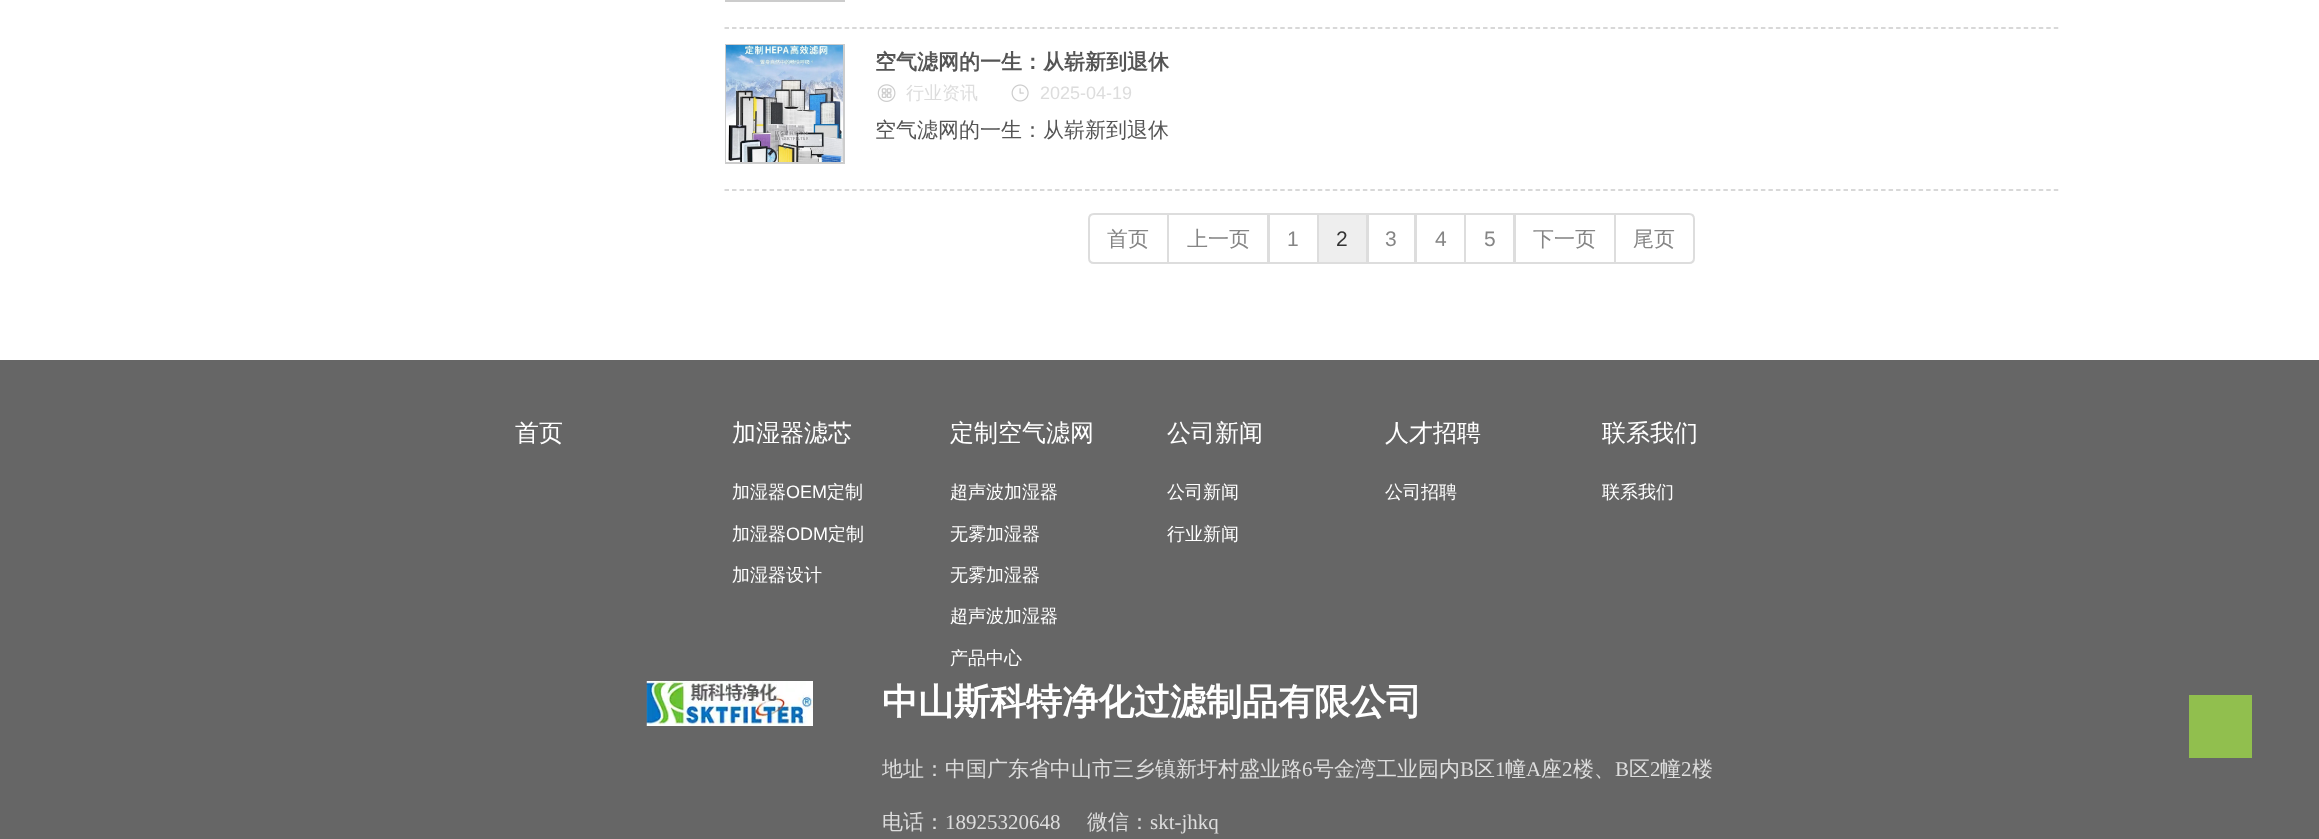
<svg xmlns="http://www.w3.org/2000/svg" width="2319" height="839" viewBox="0 0 2319 839">
  <rect width="100%" height="100%" fill="#fff"/>
  <path d="M724.5 28H2059.5" fill="none" stroke="#ccc" stroke-width="1.5" stroke-dasharray="4.5 3.01"/>
  <path d="M726 -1h118v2H726z" fill="none" stroke="#ccc" stroke-width="2"/>
  <path d="M724.5 190H2059.5" fill="none" stroke="#ccc" stroke-width="1.5" stroke-dasharray="4.5 3.01"/>
  <path d="M726 45h118v118H726z" fill="none" stroke="#ccc" stroke-width="2"/>
  <image x="726" y="45" width="117" height="117" href="img/1.png"/>
  <image x="877" y="84" width="19" height="18" href="img/2.png"/>
  <image x="1011" y="84" width="18" height="18" href="img/3.png"/>
  <path d="M1094 214H1168V263H1094C1091 263 1089 261 1089 258V219C1089 216 1091 214 1094 214Z" fill="none" stroke="#ddd" stroke-width="2"/>
  <path d="M1168 214h100v49H1168z" fill="none" stroke="#ddd" stroke-width="2"/>
  <path d="M1269 214h49v49H1269z" fill="none" stroke="#ddd" stroke-width="2"/>
  <path d="M1368 214h47v49H1368z" fill="none" stroke="#ddd" stroke-width="2"/>
  <path d="M1318 214h49v49H1318z" fill="#eee" stroke="#ddd" stroke-width="2"/>
  <path d="M1416 214h49v49H1416z" fill="none" stroke="#ddd" stroke-width="2"/>
  <path d="M1465 214h49v49H1465z" fill="none" stroke="#ddd" stroke-width="2"/>
  <path d="M1515 214h100v49H1515z" fill="none" stroke="#ddd" stroke-width="2"/>
  <path d="M1615 214H1689C1692 214 1694 216 1694 219V258C1694 261 1692 263 1689 263H1615Z" fill="#fff" stroke="#ddd" stroke-width="2"/>
  <path d="M0 360h2319v479H0z" fill="#666"/>
  <image x="646" y="681" width="167" height="45" href="img/4.png"/>
  <path d="M2189 695h63v63H2189z" fill="#91bf4e"/>
  <text x="875" y="69" font-family="WenQuanYi Zen Hei" font-size="21" font-weight="bold" fill="#555">空气滤网的一生：从崭新到退休</text>
  <text x="906" y="99" font-family="WenQuanYi Zen Hei" font-size="18" font-weight="500" fill="#ddd">行业资讯</text>
  <text x="1040" y="99" font-family="Liberation Sans" font-size="18" fill="#ddd">2025-04-19</text>
  <text x="875" y="137" font-family="WenQuanYi Zen Hei" font-size="21" font-weight="500" fill="#555">空气滤网的一生：从崭新到退休</text>
  <g font-family="WenQuanYi Zen Hei" font-size="21" font-weight="500" fill="#858585">
    <text x="1107" y="246">首页</text>
    <text x="1187" y="246">上一页</text>
  </g>
  <text x="1287" y="246" font-family="Liberation Sans" font-size="21" fill="#858585">1</text>
  <text x="1336" y="246" font-family="Liberation Sans" font-size="21" fill="#333">2</text>
  <g font-family="Liberation Sans" font-size="21" fill="#858585">
    <text x="1385" y="246">3</text>
    <text x="1435" y="246">4</text>
    <text x="1484" y="246">5</text>
  </g>
  <g font-family="WenQuanYi Zen Hei" font-size="21" font-weight="500" fill="#858585">
    <text x="1533" y="246">下一页</text>
    <text x="1633" y="246">尾页</text>
  </g>
  <g font-family="WenQuanYi Zen Hei" font-size="24" font-weight="500" fill="#fff">
    <text x="515" y="441">首页</text>
    <text x="732" y="441">加湿器滤芯</text>
  </g>
  <text x="732" y="498" font-family="WenQuanYi Zen Hei" font-size="18" font-weight="500" fill="#fff">加湿器</text>
  <text x="786" y="498" font-family="Liberation Sans" font-size="18" fill="#fff">OEM</text>
  <g font-family="WenQuanYi Zen Hei" font-size="18" font-weight="500" fill="#fff">
    <text x="827" y="498">定制</text>
    <text x="732" y="540">加湿器</text>
  </g>
  <text x="786" y="540" font-family="Liberation Sans" font-size="18" fill="#fff">ODM</text>
  <g font-family="WenQuanYi Zen Hei" font-size="18" font-weight="500" fill="#fff">
    <text x="828" y="540">定制</text>
    <text x="732" y="581">加湿器设计</text>
  </g>
  <text x="950" y="441" font-family="WenQuanYi Zen Hei" font-size="24" font-weight="500" fill="#fff">定制空气滤网</text>
  <g font-family="WenQuanYi Zen Hei" font-size="18" font-weight="500" fill="#fff">
    <text x="950" y="498">超声波加湿器</text>
    <text x="950" y="540">无雾加湿器</text>
    <text x="950" y="581">无雾加湿器</text>
    <text x="950" y="622">超声波加湿器</text>
    <text x="950" y="664">产品中心</text>
  </g>
  <text x="1167" y="441" font-family="WenQuanYi Zen Hei" font-size="24" font-weight="500" fill="#fff">公司新闻</text>
  <g font-family="WenQuanYi Zen Hei" font-size="18" font-weight="500" fill="#fff">
    <text x="1167" y="498">公司新闻</text>
    <text x="1167" y="540">行业新闻</text>
  </g>
  <text x="1385" y="441" font-family="WenQuanYi Zen Hei" font-size="24" font-weight="500" fill="#fff">人才招聘</text>
  <text x="1385" y="498" font-family="WenQuanYi Zen Hei" font-size="18" font-weight="500" fill="#fff">公司招聘</text>
  <text x="1602" y="441" font-family="WenQuanYi Zen Hei" font-size="24" font-weight="500" fill="#fff">联系我们</text>
  <text x="1602" y="498" font-family="WenQuanYi Zen Hei" font-size="18" font-weight="500" fill="#fff">联系我们</text>
  <text x="882" y="714" font-family="WenQuanYi Zen Hei" font-size="36" font-weight="bold" fill="#fff">中山斯科特净化过滤制品有限公司</text>
  <text x="882" y="776" font-family="WenQuanYi Zen Hei" font-size="21" font-weight="500" fill="#ddd">地址：中国广东省中山市三乡镇新圩村盛业路</text>
  <text x="1302" y="776" font-family="Liberation Serif" font-size="21" fill="#ddd">6</text>
  <text x="1313" y="776" font-family="WenQuanYi Zen Hei" font-size="21" font-weight="500" fill="#ddd">号金湾工业园内</text>
  <text x="1460" y="776" font-family="Liberation Serif" font-size="21" fill="#ddd">B</text>
  <text x="1474" y="776" font-family="WenQuanYi Zen Hei" font-size="21" font-weight="500" fill="#ddd">区</text>
  <text x="1495" y="776" font-family="Liberation Serif" font-size="21" fill="#ddd">1</text>
  <text x="1505" y="776" font-family="WenQuanYi Zen Hei" font-size="21" font-weight="500" fill="#ddd">幢</text>
  <text x="1526" y="776" font-family="Liberation Serif" font-size="21" fill="#ddd">A</text>
  <text x="1541" y="776" font-family="WenQuanYi Zen Hei" font-size="21" font-weight="500" fill="#ddd">座</text>
  <text x="1562" y="776" font-family="Liberation Serif" font-size="21" fill="#ddd">2</text>
  <text x="1573" y="776" font-family="WenQuanYi Zen Hei" font-size="21" font-weight="500" fill="#ddd">楼、</text>
  <text x="1615" y="776" font-family="Liberation Serif" font-size="21" fill="#ddd">B</text>
  <text x="1629" y="776" font-family="WenQuanYi Zen Hei" font-size="21" font-weight="500" fill="#ddd">区</text>
  <text x="1650" y="776" font-family="Liberation Serif" font-size="21" fill="#ddd">2</text>
  <text x="1660" y="776" font-family="WenQuanYi Zen Hei" font-size="21" font-weight="500" fill="#ddd">幢</text>
  <text x="1681" y="776" font-family="Liberation Serif" font-size="21" fill="#ddd">2</text>
  <g font-family="WenQuanYi Zen Hei" font-size="21" font-weight="500" fill="#ddd">
    <text x="1692" y="776">楼</text>
    <text x="882" y="829">电话：</text>
  </g>
  <text x="945" y="829" font-family="Liberation Serif" font-size="21" fill="#ddd">18925320648</text>
  <text x="1087" y="829" font-family="WenQuanYi Zen Hei" font-size="21" font-weight="500" fill="#ddd">微信：</text>
  <text x="1150" y="829" font-family="Liberation Serif" font-size="21" fill="#ddd">skt-jhkq</text>
</svg>
